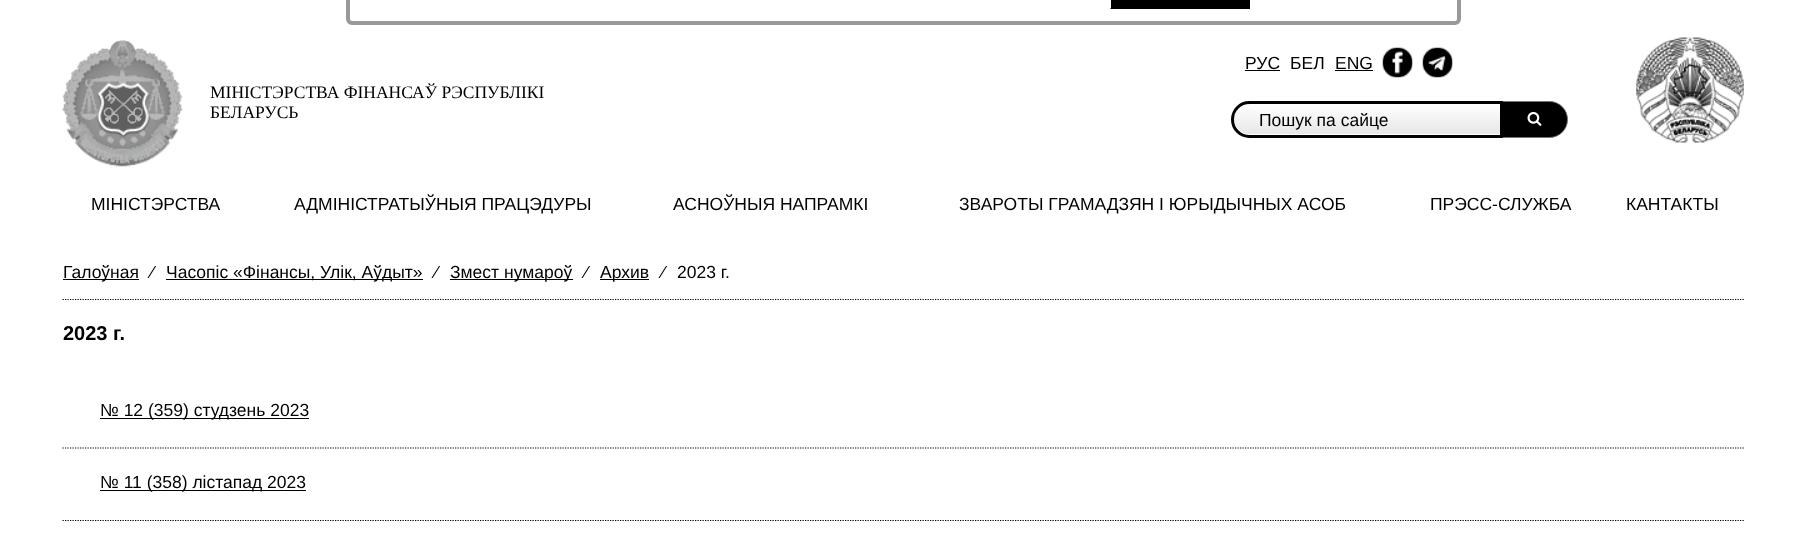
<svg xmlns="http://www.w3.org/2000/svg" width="1806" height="534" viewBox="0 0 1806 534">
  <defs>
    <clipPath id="clip1"><path d="M1249.5 101H1503V138H1249.5C1239.5 138 1231 129.5 1231 119.5C1231 109.5 1239.5 101 1249.5 101Z"/></clipPath>
    <linearGradient id="g1" gradientUnits="userSpaceOnUse" x1="1367" y1="135" x2="1367" y2="104"><stop offset="0" stop-color="#e6e6e6"/><stop offset="1" stop-color="#fff"/></linearGradient>
  </defs>
  <rect width="100%" height="100%" fill="#fff"/>
  <rect x="348" y="-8" width="1111" height="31" rx="4" fill="none" stroke="#999" stroke-width="4"/>
  <path d="M1110 0h140v9H1110z" fill="#000"/>
  <path d="M1110 9V-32L1111-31V8Z" fill="#fff"/>
  <image x="62" y="40" width="121" height="127" href="img/1.png"/>
  <path d="M1245 70h35v1H1245z" fill="#000"/>
  <path d="M1335 70h38v1H1335z" fill="#000"/>
  <image x="1382" y="47" width="31" height="31" href="img/2.png"/>
  <image x="1422" y="47" width="31" height="31" href="img/3.png"/>
  <g clip-path="url(#clip1)">
    <path d="M1231 104h269v31H1231z" fill="url(#g1)"/>
  </g>
  <path d="M1234 119C1234 128 1241 135 1250 135H1500V134H1249C1241 134 1234 127 1234 119Z" fill="#fff"/>
  <path d="M1501.5 101.5H1549.5C1559.5 101.5 1567.5 109.5 1567.5 119.5C1567.5 129.5 1559.5 137.5 1549.5 137.5H1501.5Z" fill="#000" stroke="#70747d"/>
  <path d="M1249.5 102.5H1501.5V136.5H1249.5C1240 136.5 1232.5 129 1232.5 119.5C1232.5 110 1240 102.5 1249.5 102.5Z" fill="none" stroke="#000" stroke-width="3"/>
  <image x="1527" y="112" width="15" height="14" href="img/4.png"/>
  <image x="1636" y="37" width="108" height="106" href="img/5.png"/>
  <path d="M62.5 299.5H1744" fill="none" stroke="#000" stroke-width="1.2" stroke-dasharray="1.25 1.25"/>
  <path d="M63 279h76v1H63z" fill="#000"/>
  <path d="M166 279h257v1H166z" fill="#000"/>
  <path d="M450 279h123v1H450z" fill="#000"/>
  <path d="M600 279h49v1H600z" fill="#000"/>
  <path d="M62.5 448H1744" fill="none" stroke="#000" stroke-width="1.2" stroke-dasharray="1.25 1.25"/>
  <path d="M100 418h209v1H100z" fill="#000"/>
  <path d="M62.5 520.5H1744" fill="none" stroke="#000" stroke-width="1.2" stroke-dasharray="1.25 1.25"/>
  <path d="M100 490h206v1H100z" fill="#000"/>
  <g font-family="Liberation Serif" font-size="17.5" fill="#000">
    <text x="210" y="98">МІНІСТЭРСТВА ФІНАНСАЎ РЭСПУБЛІКІ</text>
    <text x="210" y="118">БЕЛАРУСЬ</text>
  </g>
  <g font-family="Liberation Sans" font-size="17.5" fill="#000">
    <text x="1245" y="69">РУС</text>
    <text x="1290" y="69">БЕЛ</text>
    <text x="1335" y="69">ENG</text>
    <text x="1259" y="126">Пошук па сайце</text>
    <text x="91" y="210">МIНIСТЭРСТВА</text>
    <text x="294" y="210">АДМIНIСТРАТЫЎНЫЯ ПРАЦЭДУРЫ</text>
    <text x="673" y="210">АСНОЎНЫЯ НАПРАМКI</text>
    <text x="959" y="210">ЗВАРОТЫ ГРАМАДЗЯН I ЮРЫДЫЧНЫХ АСОБ</text>
    <text x="1430" y="210">ПРЭСС-СЛУЖБА</text>
    <text x="1626" y="210">КАНТАКТЫ</text>
    <text x="63" y="278">Галоўная</text>
    <text x="151" y="278">⁄</text>
    <text x="166" y="278">Часопіс «Фінансы, Улік, Аўдыт»</text>
    <text x="435" y="278">⁄</text>
    <text x="450" y="278">Змест нумароў</text>
    <text x="585" y="278">⁄</text>
    <text x="600" y="278">Архив</text>
    <text x="662" y="278">⁄</text>
    <text x="677" y="278">2023 г.</text>
  </g>
  <text x="63" y="340" font-family="Liberation Sans" font-size="20" font-weight="bold" fill="#000">2023 г.</text>
  <g font-family="Liberation Sans" font-size="17.5" fill="#000">
    <text x="100" y="416">№ 12 (359) студзень 2023</text>
    <text x="100" y="488">№ 11 (358) лiстапад 2023</text>
  </g>
</svg>
